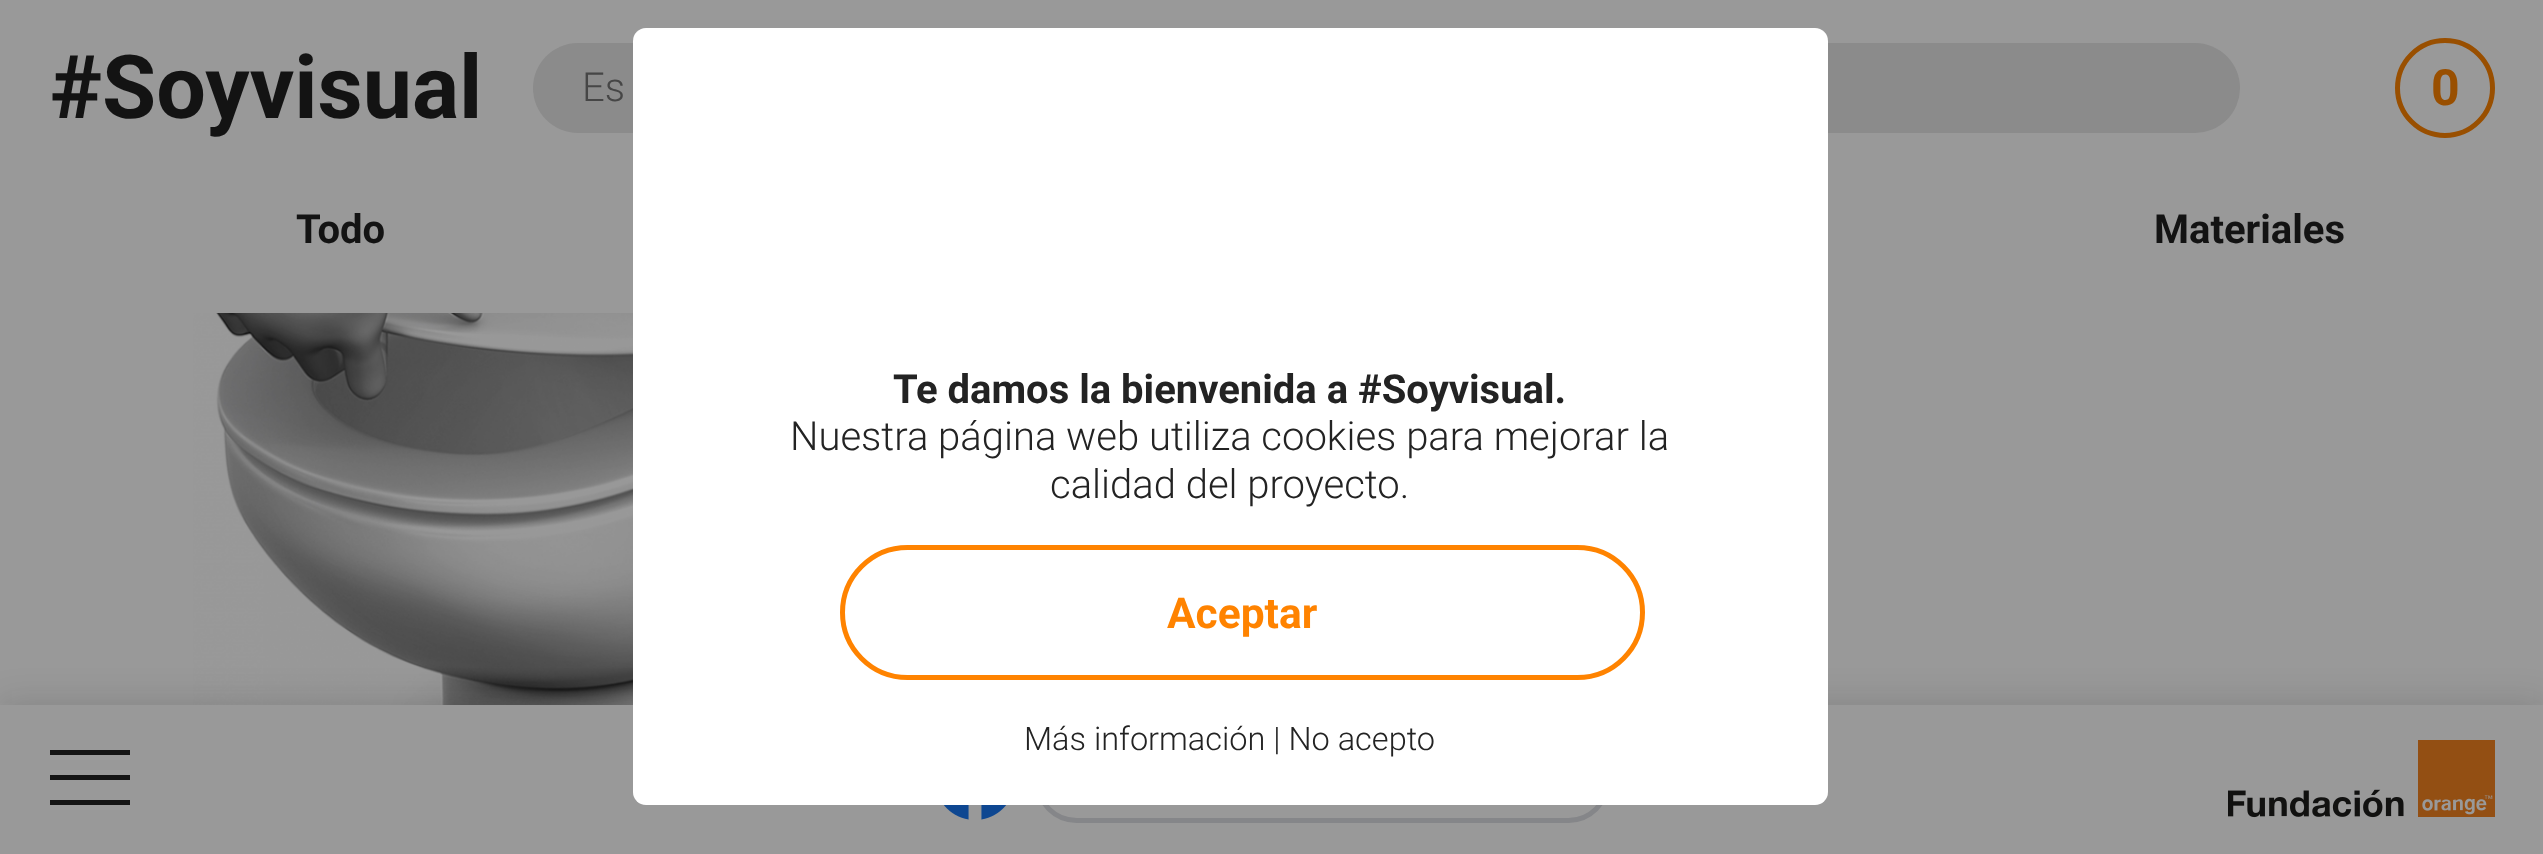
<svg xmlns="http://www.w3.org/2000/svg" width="2543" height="854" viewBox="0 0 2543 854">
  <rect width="100%" height="100%" fill="#999"/>
  <rect x="533" y="43" width="1707" height="90" rx="45" fill="#8b8b8b"/>
  <circle cx="2445" cy="88" r="47.5" fill="none" stroke="#994f00" stroke-width="5"/>
  <image x="193" y="313" width="440" height="392" href="img/1.png"/>
  <path d="M0 703h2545v150H0z" fill="#10101026" filter="blur(17.5px)"/>
  <path d="M0 705h2543v149H0z" fill="#999"/>
  <path d="M50 775h80v5H50z" fill="#131313"/>
  <path d="M50 750h80v5H50z" fill="#131313"/>
  <path d="M50 800h80v5H50z" fill="#131313"/>
  <image x="944" y="805" width="63" height="15" href="img/2.png"/>
  <rect x="1037.5" y="742.5" width="570" height="78" rx="39" fill="none" stroke="#858689" stroke-width="5"/>
  <image x="2228" y="740" width="267" height="78" href="img/3.png"/>
  <rect x="633" y="28" width="1195" height="777" rx="13" fill="#fff"/>
  <rect x="842.5" y="547.5" width="800" height="130" rx="65" fill="none" stroke="#ff8300" stroke-width="5"/>
  <text x="50" y="118" font-family="Roboto" font-size="88" font-weight="bold" fill="#131313">#Soyvisual</text>
  <text x="582" y="101" font-family="Roboto" font-size="40" font-weight="300" fill="#464646">Es</text>
  <g font-family="Roboto" font-size="40" font-weight="bold" fill="#131313">
    <text x="296" y="243">Todo</text>
    <text x="2154" y="243">Materiales</text>
  </g>
  <text x="2431" y="105" font-family="Roboto" font-size="50" font-weight="bold" fill="#994f00">0</text>
  <text x="893" y="403" font-family="Roboto" font-size="40" font-weight="bold" fill="#232323">Te damos la bienvenida a #Soyvisual.</text>
  <g font-family="Roboto" font-size="40" font-weight="300" fill="#232323">
    <text x="790" y="450">Nuestra página web utiliza cookies para mejorar la</text>
    <text x="1050" y="498">calidad del proyecto.</text>
  </g>
  <text x="1024" y="750" font-family="Roboto" font-size="32.5" font-weight="300" fill="#232323">Más información | No acepto</text>
  <text x="1167" y="628" font-family="Roboto" font-size="42.5" font-weight="bold" fill="#ff8300">Aceptar</text>
</svg>
